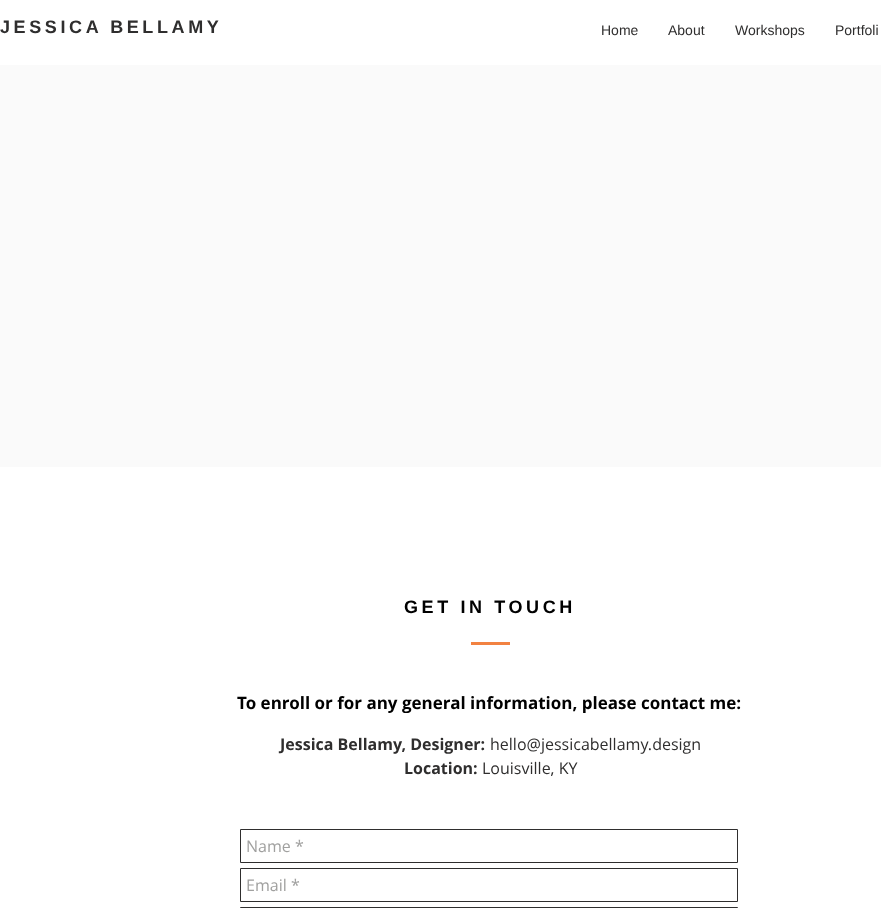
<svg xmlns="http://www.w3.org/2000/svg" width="881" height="908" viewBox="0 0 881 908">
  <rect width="100%" height="100%" fill="#fff"/>
  <path d="M0 65h881v402H0z" fill="#fafafa"/>
  <path d="M471 642h39v3H471z" fill="#f28241"/>
  <path d="M240.5 829.5h497v33H240.5z" fill="none" stroke="#2f2e2e"/>
  <path d="M240.5 868.5h497v33H240.5z" fill="none" stroke="#2f2e2e"/>
  <path d="M240.5 907.5h497v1H240.5z" fill="none" stroke="#2f2e2e"/>
  <text x="0" y="33" font-family="Liberation Sans" font-size="18" font-weight="bold" letter-spacing="3.6" fill="#2f2e2e">JESSICA BELLAMY</text>
  <g font-family="Liberation Sans" font-size="14" fill="#2f2e2e">
    <text x="601" y="35">Home</text>
    <text x="668" y="35">About</text>
    <text x="735" y="35">Workshops</text>
    <text x="835" y="35">Portfoli</text>
  </g>
  <text x="404" y="613" font-family="Liberation Sans" font-size="18" font-weight="bold" letter-spacing="3.6" fill="#000">GET IN TOUCH</text>
  <text x="237" y="709" font-family="Open Sans" font-size="17" font-weight="bold" fill="#000">To enroll or for any general information, please contact me:</text>
  <text x="280" y="750" font-family="Open Sans" font-size="16" font-weight="bold" fill="#2f2e2e">Jessica Bellamy, Designer:</text>
  <text x="490" y="750" font-family="Open Sans" font-size="16" fill="#2f2e2e">hello@jessicabellamy.design</text>
  <text x="404" y="774" font-family="Open Sans" font-size="16" font-weight="bold" fill="#2f2e2e">Location:</text>
  <text x="482" y="774" font-family="Open Sans" font-size="16" fill="#2f2e2e">Louisville, KY</text>
  <g font-family="Open Sans" font-size="16" fill="#a0a09f">
    <text x="246" y="852">Name *</text>
    <text x="246" y="891">Email *</text>
  </g>
</svg>
